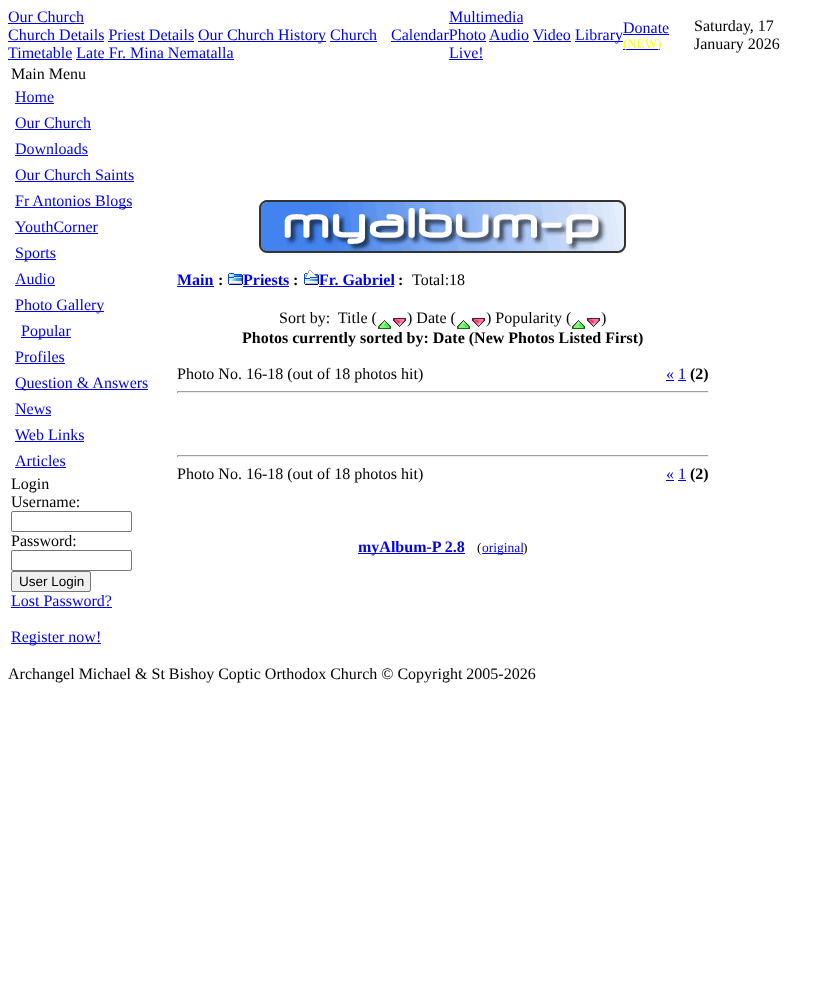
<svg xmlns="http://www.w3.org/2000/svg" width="827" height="994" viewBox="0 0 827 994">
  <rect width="100%" height="100%" fill="#fff"/>
  <path d="M8 23h76v1H8z" fill="#00e"/>
  <path d="M8 41h96v1H8z" fill="#00e"/>
  <path d="M198 41h128v1H198z" fill="#00e"/>
  <path d="M108 41h86v1H108z" fill="#00e"/>
  <path d="M330 41h47v1H330z" fill="#00e"/>
  <path d="M8 59h64v1H8z" fill="#00e"/>
  <path d="M76 59h158v1H76z" fill="#00e"/>
  <path d="M391 41h95v1H391z" fill="#00e"/>
  <path d="M449 23h74v1H449z" fill="#00e"/>
  <path d="M489 41h40v1H489z" fill="#00e"/>
  <path d="M533 41h38v1H533z" fill="#00e"/>
  <path d="M449 59h34v1H449z" fill="#00e"/>
  <path d="M575 41h48v1H575z" fill="#00e"/>
  <path d="M623 34h46v1H623z" fill="#00e"/>
  <path d="M623 49h37v1H623z" fill="#00e"/>
  <path d="M15 103h39v1H15z" fill="#00e"/>
  <path d="M15 129h76v1H15z" fill="#00e"/>
  <path d="M15 155h73v1H15z" fill="#00e"/>
  <path d="M15 181h119v1H15z" fill="#00e"/>
  <path d="M15 207h117v1H15z" fill="#00e"/>
  <path d="M15 233h83v1H15z" fill="#00e"/>
  <path d="M15 259h41v1H15z" fill="#00e"/>
  <path d="M15 285h40v1H15z" fill="#00e"/>
  <path d="M15 311h89v1H15z" fill="#00e"/>
  <path d="M21 337h50v1H21z" fill="#00e"/>
  <path d="M15 363h50v1H15z" fill="#00e"/>
  <path d="M15 389h133v1H15z" fill="#00e"/>
  <path d="M15 415h36v1H15z" fill="#00e"/>
  <path d="M15 441h69v1H15z" fill="#00e"/>
  <path d="M15 467h51v1H15z" fill="#00e"/>
  <rect x="11.5" y="511.5" width="120" height="20" rx="1.5" fill="none" stroke="#767676"/>
  <rect x="11.5" y="550.5" width="120" height="20" rx="1.5" fill="none" stroke="#767676"/>
  <rect x="11.5" y="571.5" width="79" height="20" rx="1.5" fill="#efefef" stroke="#767676"/>
  <path d="M11 607h101v1H11z" fill="#00e"/>
  <path d="M11 643h90v1H11z" fill="#00e"/>
  <image x="259" y="200" width="367" height="53" href="img/1.png"/>
  <path d="M177 286h37v1H177z" fill="#00e"/>
  <image x="228" y="273" width="15" height="12" href="img/2.png"/>
  <path d="M243 286h46v1H243z" fill="#00e"/>
  <image x="304" y="270" width="15" height="15" href="img/3.png"/>
  <path d="M319 286h75v1H319z" fill="#00e"/>
  <image x="378" y="320" width="13" height="9" href="img/4.png"/>
  <image x="393" y="318" width="13" height="9" href="img/5.png"/>
  <image x="457" y="320" width="13" height="9" href="img/4.png"/>
  <image x="472" y="318" width="13" height="9" href="img/5.png"/>
  <image x="572" y="320" width="13" height="9" href="img/4.png"/>
  <image x="587" y="318" width="13" height="9" href="img/5.png"/>
  <path d="M666 380h8v1H666z" fill="#00e"/>
  <path d="M678 380h8v1H678z" fill="#00e"/>
  <path d="M177 391h532v1H177z" fill="#9f9f9f"/>
  <path d="M708 391h1v2H708z" fill="#eee"/>
  <path d="M177 392h532v1H177z" fill="#eee"/>
  <path d="M177 391h1v2H177z" fill="#9f9f9f"/>
  <path d="M177 455h532v1H177z" fill="#9f9f9f"/>
  <path d="M708 455h1v2H708z" fill="#eee"/>
  <path d="M177 456h532v1H177z" fill="#eee"/>
  <path d="M177 455h1v2H177z" fill="#9f9f9f"/>
  <path d="M666 480h8v1H666z" fill="#00e"/>
  <path d="M678 480h8v1H678z" fill="#00e"/>
  <path d="M358 553h107v1H358z" fill="#00e"/>
  <path d="M482 553h41v1H482z" fill="#00e"/>
  <g font-family="Liberation Serif" font-size="16" fill="#00e">
    <text x="8" y="22">Our Church</text>
    <text x="8" y="40">Church Details Priest Details</text>
    <text x="198" y="40">Our Church History Church</text>
    <text x="8" y="58">Timetable Late Fr. Mina Nematalla</text>
    <text x="391" y="40">CalendarPhoto</text>
    <text x="449" y="22">Multimedia</text>
    <text x="489" y="40">Audio Video</text>
    <text x="449" y="58">Live!</text>
    <text x="575" y="40">Library</text>
    <text x="623" y="33">Donate</text>
  </g>
  <text x="623" y="48" font-family="Liberation Serif" font-size="13" fill="#ff0">(NEW)</text>
  <g font-family="Liberation Serif" font-size="16" fill="#000">
    <text x="694" y="31">Saturday, 17</text>
    <text x="694" y="49">January 2026</text>
    <text x="11" y="79">Main Menu</text>
  </g>
  <g font-family="Liberation Serif" font-size="16" fill="#00e">
    <text x="15" y="102">Home</text>
    <text x="15" y="128">Our Church</text>
    <text x="15" y="154">Downloads</text>
    <text x="15" y="180">Our Church Saints</text>
    <text x="15" y="206">Fr Antonios Blogs</text>
    <text x="15" y="232">YouthCorner</text>
    <text x="15" y="258">Sports</text>
    <text x="15" y="284">Audio</text>
    <text x="15" y="310">Photo Gallery</text>
    <text x="21" y="336">Popular</text>
    <text x="15" y="362">Profiles</text>
    <text x="15" y="388">Question &amp; Answers</text>
    <text x="15" y="414">News</text>
    <text x="15" y="440">Web Links</text>
    <text x="15" y="466">Articles</text>
  </g>
  <g font-family="Liberation Serif" font-size="16" fill="#000">
    <text x="11" y="489">Login</text>
    <text x="11" y="507">Username:</text>
    <text x="11" y="546">Password:</text>
  </g>
  <text x="19" y="586" font-family="Liberation Sans" font-size="13.5" fill="#000">User Login</text>
  <g font-family="Liberation Serif" font-size="16" fill="#00e">
    <text x="11" y="606">Lost Password?</text>
    <text x="11" y="642">Register now!</text>
  </g>
  <text x="177" y="285" font-family="Liberation Serif" font-size="16" font-weight="bold" fill="#00e">Main</text>
  <text x="218" y="285" font-family="Liberation Serif" font-size="16" font-weight="bold" fill="#000">:</text>
  <text x="243" y="285" font-family="Liberation Serif" font-size="16" font-weight="bold" fill="#00e">Priests</text>
  <text x="293" y="285" font-family="Liberation Serif" font-size="16" font-weight="bold" fill="#000">:</text>
  <text x="319" y="285" font-family="Liberation Serif" font-size="16" font-weight="bold" fill="#00e">Fr. Gabriel</text>
  <text x="398" y="285" font-family="Liberation Serif" font-size="16" font-weight="bold" fill="#000">:</text>
  <g font-family="Liberation Serif" font-size="16" fill="#000">
    <text x="412" y="285">Total:18</text>
    <text x="279" y="323" xml:space="preserve">Sort by:  Title (</text>
    <text x="407" y="323">) Date (</text>
    <text x="486" y="323">) Popularity (</text>
    <text x="601" y="323">)</text>
  </g>
  <text x="242" y="343" font-family="Liberation Serif" font-size="16" font-weight="bold" fill="#000">Photos currently sorted by: Date (New Photos Listed First)</text>
  <text x="177" y="379" font-family="Liberation Serif" font-size="16" fill="#000">Photo No. 16-18 (out of 18 photos hit)</text>
  <text x="666" y="379" font-family="Liberation Serif" font-size="16" fill="#00e">« 1</text>
  <text x="690" y="379" font-family="Liberation Serif" font-size="16" font-weight="bold" fill="#000">(2)</text>
  <text x="177" y="479" font-family="Liberation Serif" font-size="16" fill="#000">Photo No. 16-18 (out of 18 photos hit)</text>
  <text x="666" y="479" font-family="Liberation Serif" font-size="16" fill="#00e">« 1</text>
  <text x="690" y="479" font-family="Liberation Serif" font-size="16" font-weight="bold" fill="#000">(2)</text>
  <text x="358" y="552" font-family="Liberation Serif" font-size="16" font-weight="bold" fill="#00e">myAlbum-P 2.8</text>
  <text x="477" y="552" font-family="Liberation Serif" font-size="13.5" fill="#000">(</text>
  <text x="482" y="552" font-family="Liberation Serif" font-size="13.5" fill="#00e">original</text>
  <text x="523" y="552" font-family="Liberation Serif" font-size="13.5" fill="#000">)</text>
  <text x="8" y="679" font-family="Liberation Serif" font-size="16" fill="#000">Archangel Michael &amp; St Bishoy Coptic Orthodox Church © Copyright 2005-2026</text>
</svg>
